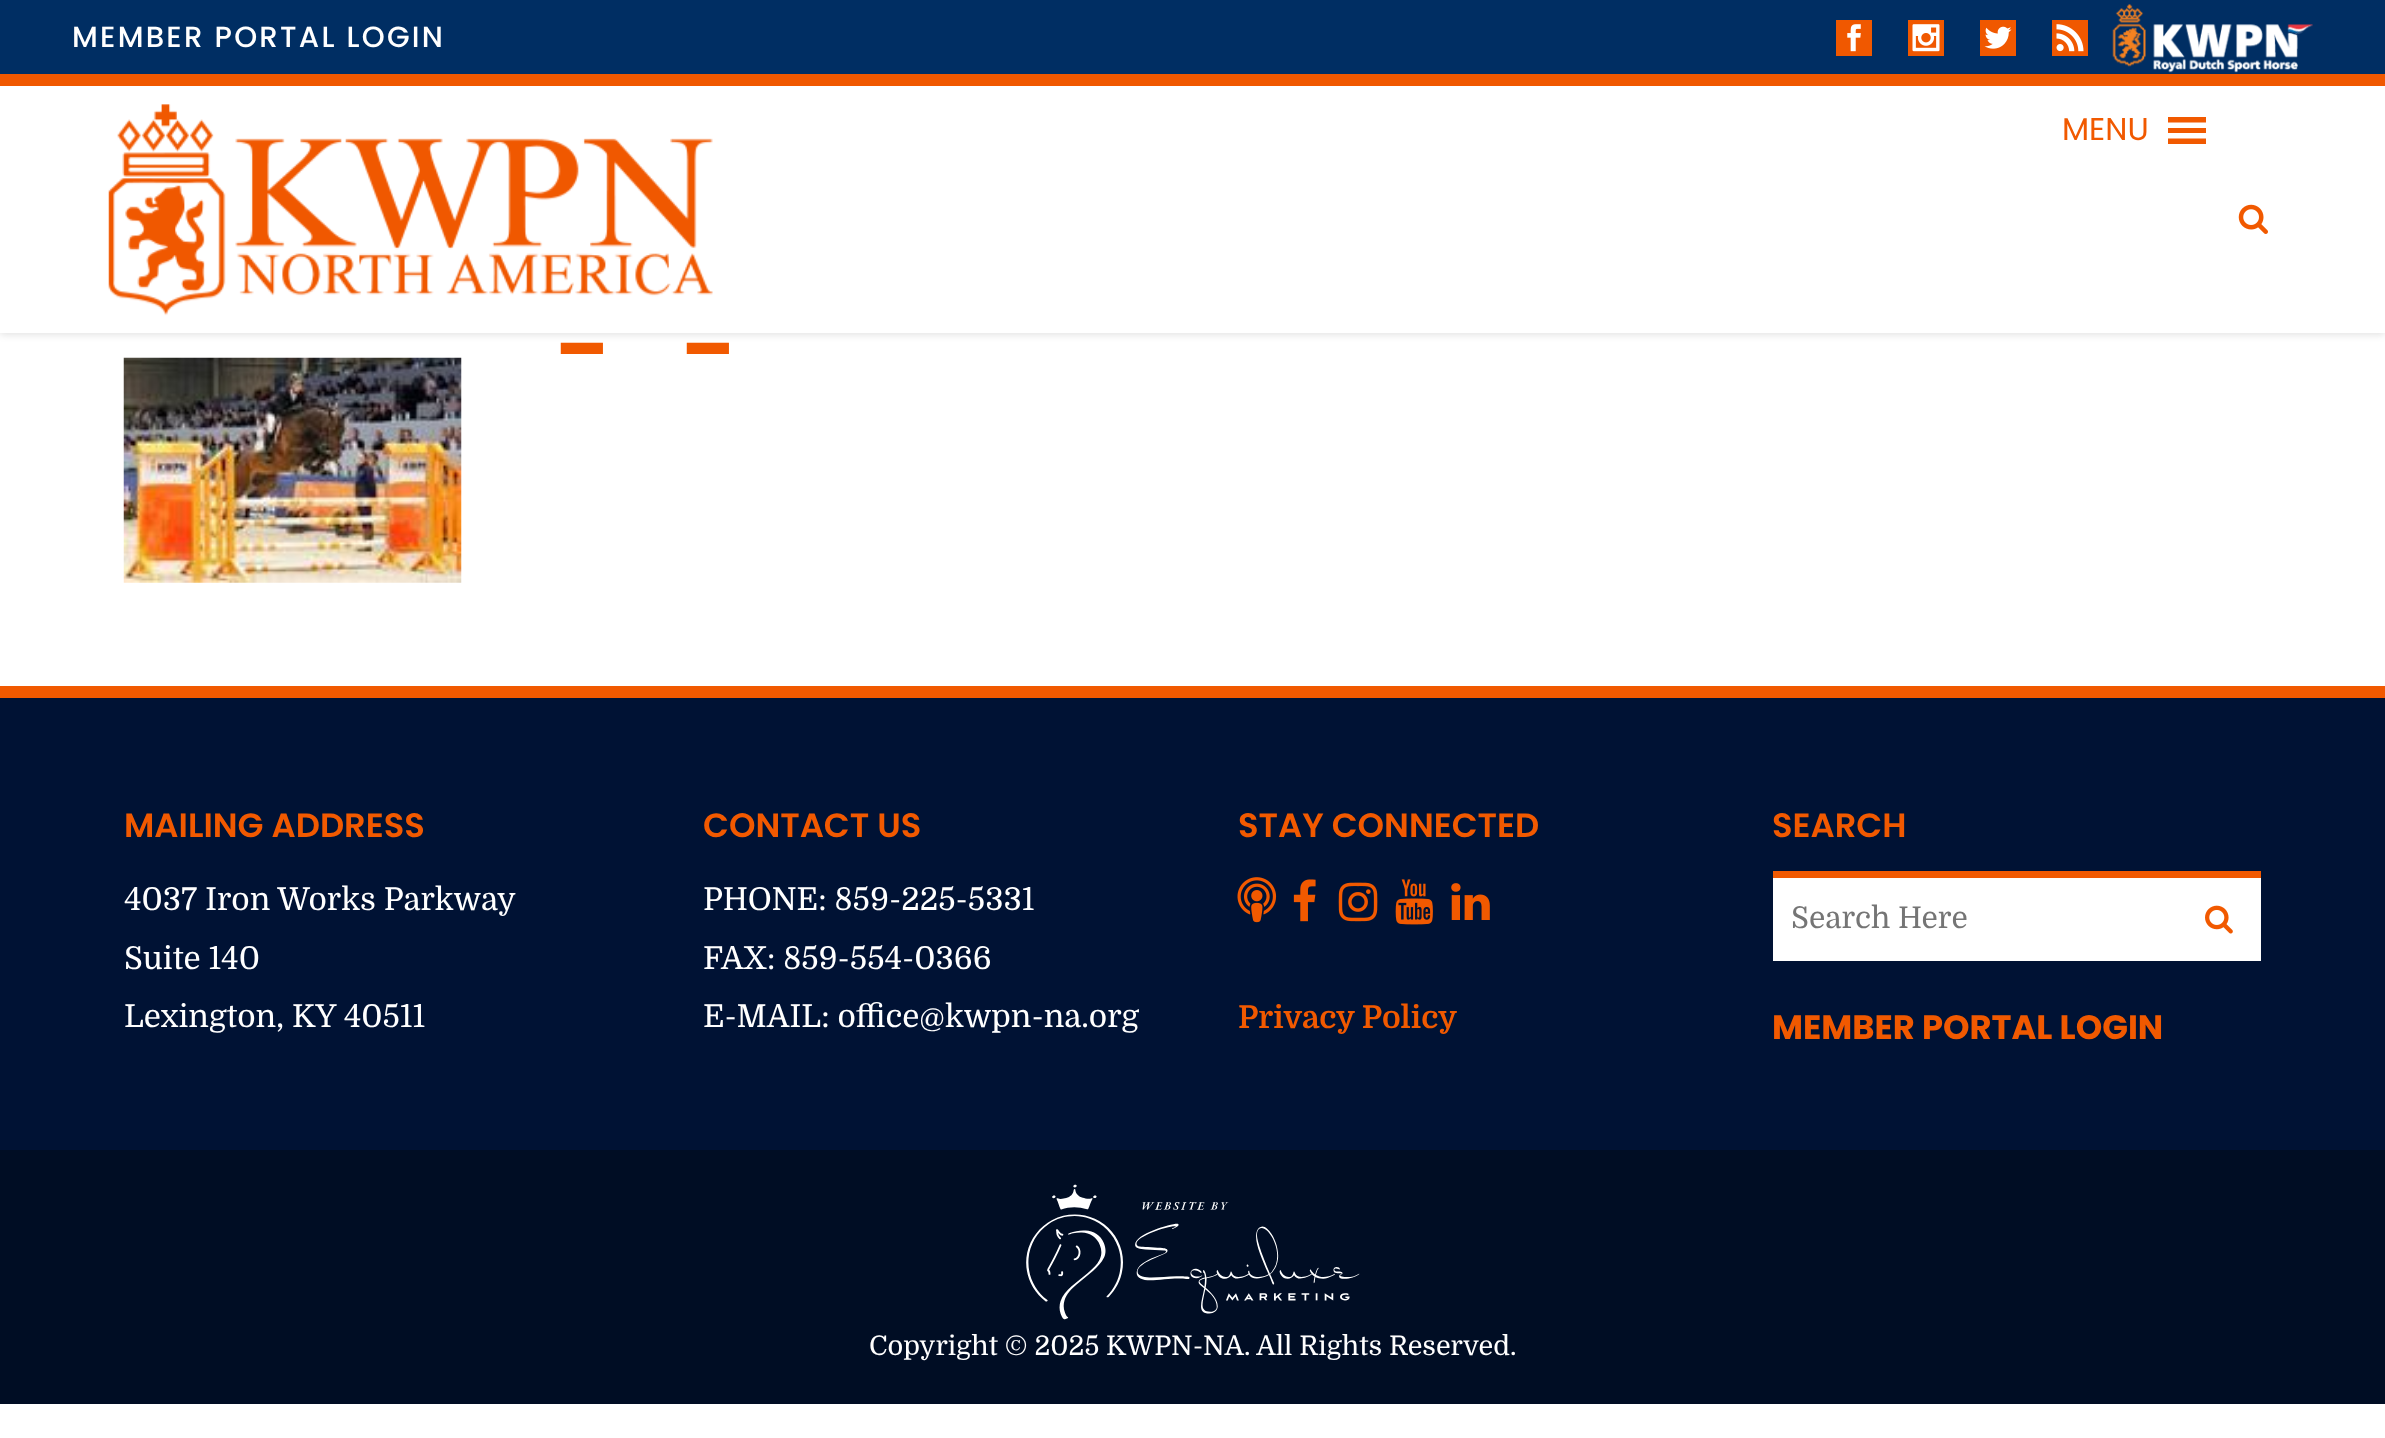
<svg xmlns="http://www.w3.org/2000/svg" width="2385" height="1438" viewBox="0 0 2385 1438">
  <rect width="100%" height="100%" fill="#fff"/>
  <path d="M0 0h2385v74H0z" fill="#002e63"/>
  <path d="M0 88h2385v247H0z" fill="#0000001c" filter="blur(3.5px)"/>
  <path d="M0 74h2385v12H0z" fill="#f05800"/>
  <path d="M1836 20h36v36H1836z" fill="#f05800"/>
  <image x="1847" y="24" width="14" height="28" href="img/1.png"/>
  <path d="M1908 20h36v36H1908z" fill="#f05800"/>
  <image x="1912" y="24" width="28" height="28" href="img/2.png"/>
  <path d="M1980 20h36v36H1980z" fill="#f05800"/>
  <image x="1984" y="26" width="28" height="23" href="img/3.png"/>
  <path d="M2052 20h36v36H2052z" fill="#f05800"/>
  <image x="2056" y="24" width="28" height="28" href="img/4.png"/>
  <image x="2112" y="4" width="201" height="69" href="img/5.png"/>
  <path d="M0 86h2385v247H0z" fill="#fff"/>
  <image x="108" y="104" width="605" height="212" href="img/6.png"/>
  <path d="M2168 144H2206V138.5H2168ZM2168 117V122.5H2206V117ZM2168 133H2206V128H2168Z" fill="#f15900"/>
  <image x="2238" y="204" width="30" height="30" href="img/7.png"/>
  <image x="123" y="357" width="339" height="226" href="img/8.png"/>
  <path d="M0 698h2385v452H0z" fill="#001234"/>
  <path d="M0 686h2385v12H0z" fill="#f15900"/>
  <image x="1237" y="877" width="40" height="46" href="img/9.png"/>
  <image x="1293" y="879" width="23" height="43" href="img/10.png"/>
  <image x="1338" y="882" width="40" height="40" href="img/11.png"/>
  <image x="1395" y="879" width="38" height="46" href="img/12.png"/>
  <image x="1451" y="883" width="39" height="37" href="img/13.png"/>
  <path d="M1773 878h488v83H1773z" fill="#fff"/>
  <path d="M1773 871h488v7H1773z" fill="#f15900"/>
  <image x="2205" y="905" width="28" height="29" href="img/14.png"/>
  <path d="M0 1150h2385v254H0z" fill="#000d24"/>
  <image x="1026" y="1184" width="334" height="136" href="img/15.png"/>
  <text x="72" y="47" font-family="Poppins" font-size="29.25" font-weight="500" letter-spacing="2.25" fill="#fff">MEMBER PORTAL LOGIN</text>
  <text x="2062" y="140" font-family="Poppins" font-size="31.5" fill="#f15900">MENU</text>
  <g font-family="Poppins" font-size="68" font-weight="bold" fill="#f15900">
    <text x="555" y="340">_</text>
    <text x="681" y="340">_</text>
  </g>
  <text x="124" y="837" font-family="Poppins" font-size="33.75" font-weight="600" fill="#f15900">MAILING ADDRESS</text>
  <g font-family="Domine" font-size="31.5" fill="#fff">
    <text x="124" y="910">4037 Iron Works Parkway</text>
    <text x="124" y="969">Suite 140</text>
    <text x="124" y="1027">Lexington, KY 40511</text>
  </g>
  <text x="703" y="837" font-family="Poppins" font-size="33.75" font-weight="600" fill="#f15900">CONTACT US</text>
  <g font-family="Domine" font-size="31.5" fill="#fff">
    <text x="703" y="910">PHONE: 859-225-5331</text>
    <text x="703" y="969">FAX: 859-554-0366</text>
    <text x="703" y="1027">E-MAIL: office@kwpn-na.org</text>
  </g>
  <text x="1238" y="837" font-family="Poppins" font-size="33.75" font-weight="600" fill="#f15900">STAY CONNECTED</text>
  <text x="1238" y="1028" font-family="Domine" font-size="31.5" font-weight="bold" fill="#f15900">Privacy Policy</text>
  <text x="1772" y="837" font-family="Poppins" font-size="33.75" font-weight="600" fill="#f15900">SEARCH</text>
  <text x="1791" y="928" font-family="Domine" font-size="30" fill="#757575">Search Here</text>
  <text x="1772" y="1039" font-family="Poppins" font-size="33.75" font-weight="bold" fill="#f15900">MEMBER PORTAL LOGIN</text>
  <text x="869" y="1355" font-family="Domine" font-size="27" fill="#fff">Copyright © 2025 KWPN-NA. All Rights Reserved.</text>
</svg>
